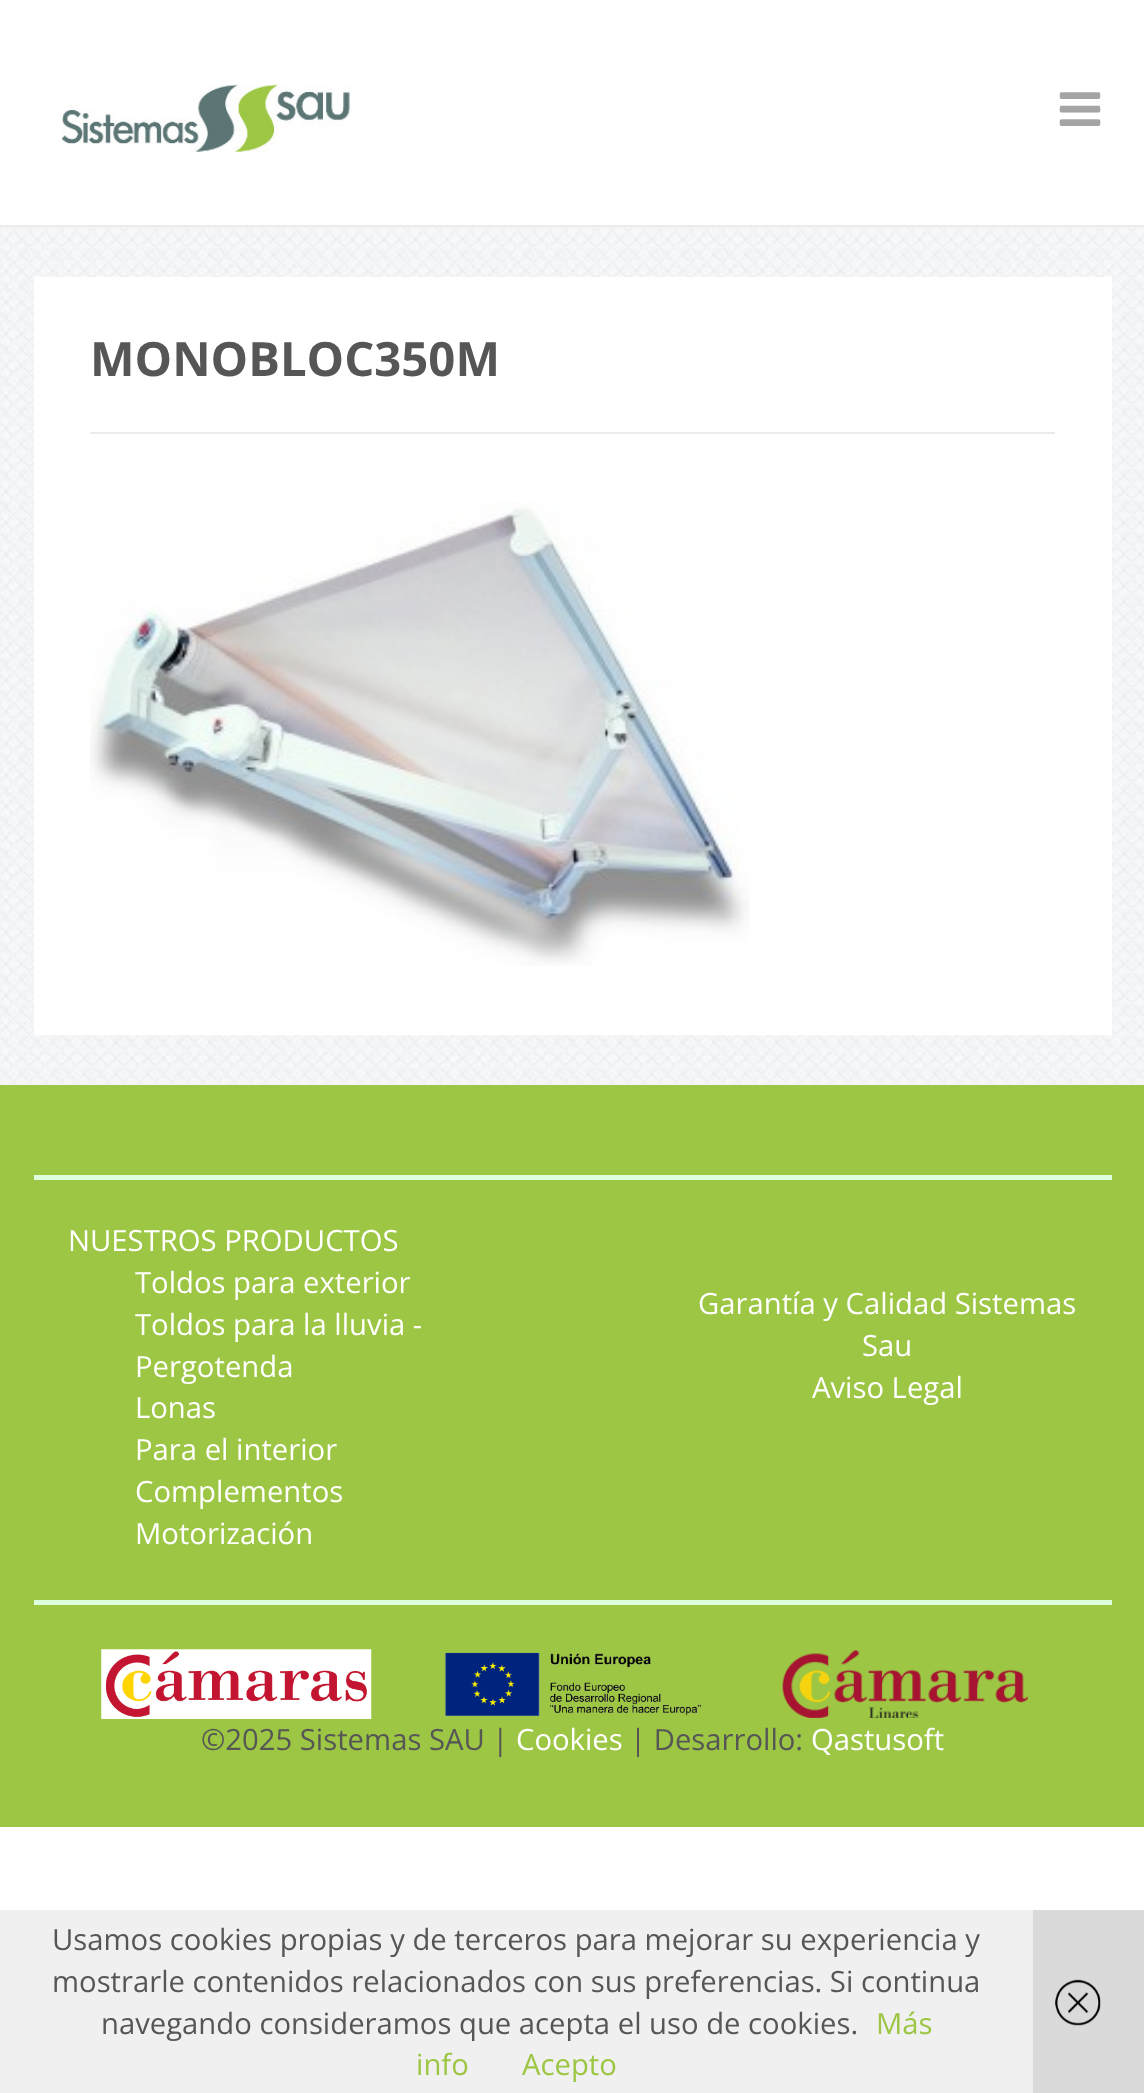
<svg xmlns="http://www.w3.org/2000/svg" width="1144" height="2093" viewBox="0 0 1144 2093">
  <rect width="100%" height="100%" fill="#fff"/>
  <path d="M0 1910h1144v183H0z" fill="#f0f0f0"/>
  <path d="M0 225h1144v2H0z" fill="#ebebeb"/>
  <image x="62" y="84" width="289" height="69" href="img/1.png"/>
  <image x="1059" y="92" width="42" height="34" href="img/2.png"/>
  <path d="M0 227h1144v858H0z" fill="#f2f4f5"/>
  <image x="0" y="228" width="1144" height="856" href="img/3.png"/>
  <path d="M34 277h1078v758H34z" fill="#fff"/>
  <path d="M90 432h965v2H90z" fill="#ebebeb"/>
  <image x="90" y="502" width="660" height="464" href="img/4.png"/>
  <path d="M0 1085h1144v742H0z" fill="#9cc643"/>
  <path d="M34 1175h1078v5H34z" fill="#dfd"/>
  <path d="M34 1600h1078v5H34z" fill="#dfd"/>
  <image x="101" y="1649" width="271" height="70" href="img/5.png"/>
  <image x="445" y="1652" width="257" height="64" href="img/6.png"/>
  <image x="782" y="1650" width="246" height="68" href="img/7.png"/>
  <path d="M1033 1910h111v183H1033z" fill="#cccccc99"/>
  <image x="1055" y="1979" width="46" height="47" href="img/8.png"/>
  <text x="90" y="376" font-family="Open Sans" font-size="47.25" font-weight="bold" fill="#565656">MONOBLOC350M</text>
  <g font-family="Open Sans" font-size="29.25" fill="#fff">
    <text x="68" y="1251">NUESTROS PRODUCTOS</text>
    <text x="135" y="1293">Toldos para exterior</text>
    <text x="135" y="1335">Toldos para la lluvia -</text>
    <text x="135" y="1377">Pergotenda</text>
    <text x="135" y="1418">Lonas</text>
    <text x="135" y="1460">Para el interior</text>
    <text x="135" y="1502">Complementos</text>
    <text x="135" y="1544">Motorización</text>
    <text x="698" y="1314">Garantía y Calidad Sistemas</text>
    <text x="862" y="1356">Sau</text>
    <text x="812" y="1398">Aviso Legal</text>
  </g>
  <text x="201" y="1750" font-family="Open Sans" font-size="29.25" fill="#565656">©2025 Sistemas SAU |</text>
  <text x="516" y="1750" font-family="Open Sans" font-size="29.25" fill="#fff">Cookies</text>
  <text x="630" y="1750" font-family="Open Sans" font-size="29.25" fill="#565656">| Desarrollo:</text>
  <text x="811" y="1750" font-family="Open Sans" font-size="29.25" fill="#fff">Qastusoft</text>
  <g font-family="Open Sans" font-size="29.25" fill="#565656">
    <text x="52" y="1950">Usamos cookies propias y de terceros para mejorar su experiencia y</text>
    <text x="52" y="1992">mostrarle contenidos relacionados con sus preferencias. Si continua</text>
    <text x="101" y="2034">navegando consideramos que acepta el uso de cookies.</text>
  </g>
  <g font-family="Open Sans" font-size="29.25" fill="#9cc643">
    <text x="876" y="2034">Más</text>
    <text x="416" y="2075">info</text>
    <text x="522" y="2075">Acepto</text>
  </g>
</svg>
